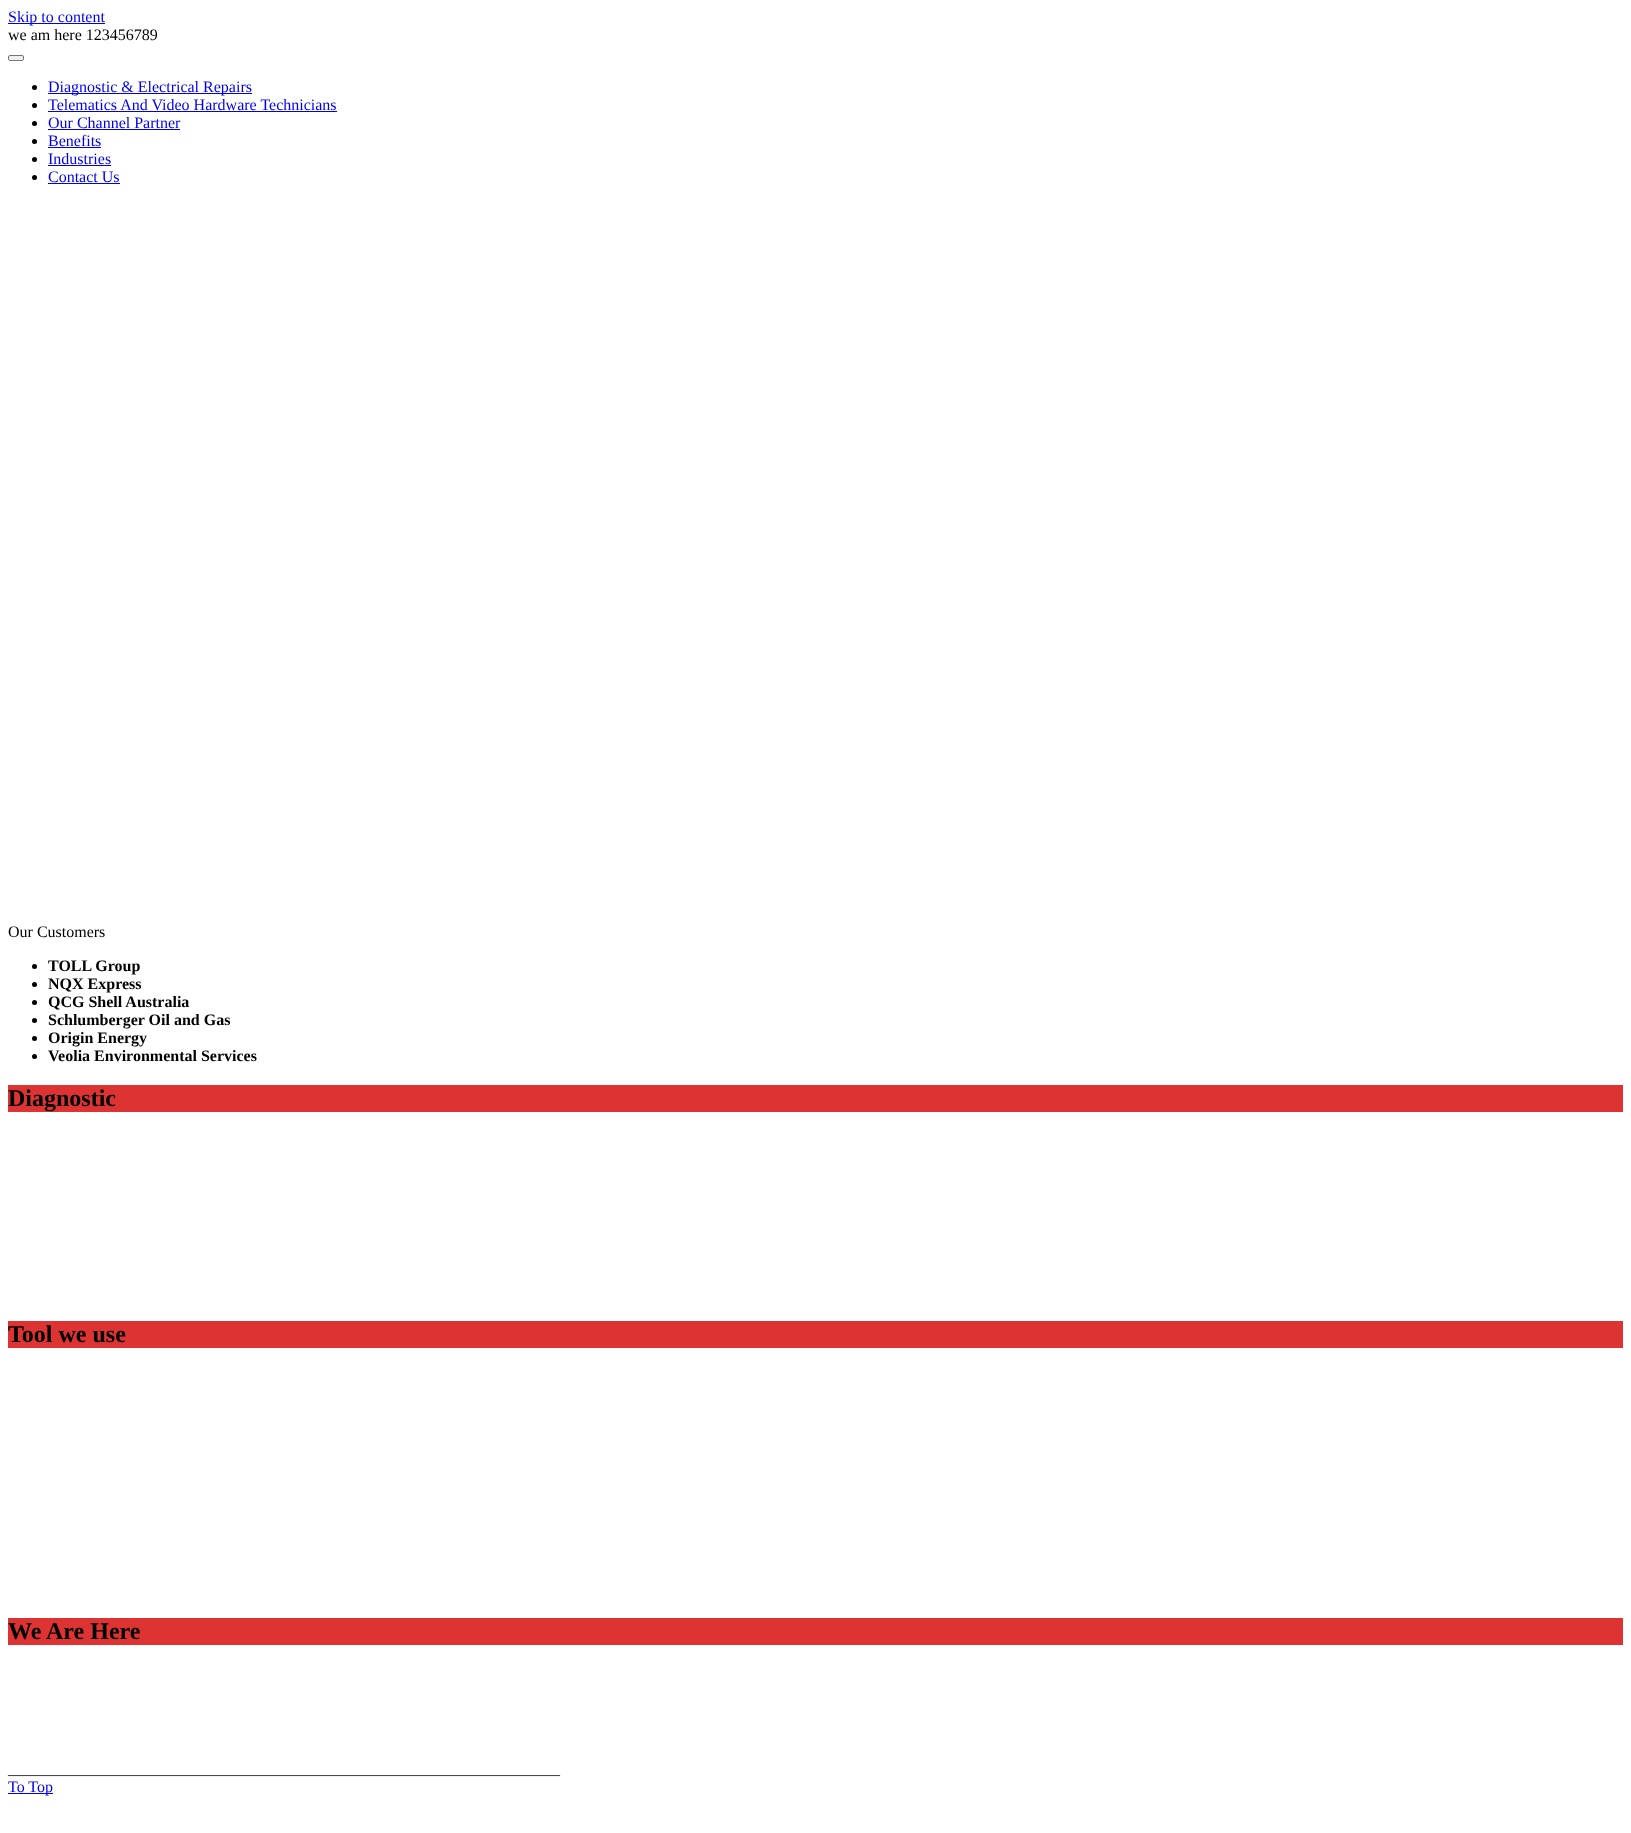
<svg xmlns="http://www.w3.org/2000/svg" width="1631" height="1833" viewBox="0 0 1631 1833">
  <rect width="100%" height="100%" fill="#fff"/>
  <path d="M8 23h97v1H8z" fill="#00e"/>
  <rect x="8.5" y="55.5" width="15" height="5" rx="1.5" fill="#efefef" stroke="#767676"/>
  <circle cx="34.5" cy="87.5" r="2.5" fill="#000"/>
  <path d="M48 93h204v1H48z" fill="#00e"/>
  <circle cx="34.5" cy="105.5" r="2.5" fill="#000"/>
  <path d="M48 111h289v1H48z" fill="#00e"/>
  <circle cx="34.5" cy="123.5" r="2.5" fill="#000"/>
  <path d="M48 129h132v1H48z" fill="#00e"/>
  <circle cx="34.5" cy="141.5" r="2.5" fill="#000"/>
  <path d="M48 147h53v1H48z" fill="#00e"/>
  <circle cx="34.5" cy="159.5" r="2.5" fill="#000"/>
  <path d="M48 165h63v1H48z" fill="#00e"/>
  <circle cx="34.5" cy="177.5" r="2.5" fill="#000"/>
  <path d="M48 183h72v1H48z" fill="#00e"/>
  <circle cx="34.5" cy="966.5" r="2.5" fill="#000"/>
  <circle cx="34.5" cy="984.5" r="2.5" fill="#000"/>
  <circle cx="34.5" cy="1002.5" r="2.5" fill="#000"/>
  <circle cx="34.5" cy="1020.5" r="2.5" fill="#000"/>
  <circle cx="34.5" cy="1038.5" r="2.5" fill="#000"/>
  <circle cx="34.5" cy="1056.5" r="2.5" fill="#000"/>
  <path d="M8 1085h1615v27H8z" fill="#d33"/>
  <path d="M8 1321h1615v27H8z" fill="#d33"/>
  <path d="M8 1618h1615v27H8z" fill="#d33"/>
  <path d="M8 1793h45v1H8z" fill="#00e"/>
  <text x="8" y="22" font-family="Liberation Serif" font-size="16" fill="#00e">Skip to content</text>
  <text x="8" y="40" font-family="Liberation Serif" font-size="16" fill="#000">we am here 123456789</text>
  <g font-family="Liberation Serif" font-size="16" fill="#00e">
    <text x="48" y="92">Diagnostic &amp; Electrical Repairs</text>
    <text x="48" y="110">Telematics And Video Hardware Technicians</text>
    <text x="48" y="128">Our Channel Partner</text>
    <text x="48" y="146">Benefits</text>
    <text x="48" y="164">Industries</text>
    <text x="48" y="182">Contact Us</text>
  </g>
  <text x="8" y="937" font-family="Liberation Serif" font-size="16" fill="#000">Our Customers</text>
  <g font-family="Liberation Serif" font-size="16" font-weight="bold" fill="#000">
    <text x="48" y="971">TOLL Group</text>
    <text x="48" y="989">NQX Express</text>
    <text x="48" y="1007">QCG Shell Australia</text>
    <text x="48" y="1025">Schlumberger Oil and Gas</text>
    <text x="48" y="1043">Origin Energy</text>
    <text x="48" y="1061">Veolia Environmental Services</text>
  </g>
  <g font-family="Liberation Serif" font-size="24" font-weight="bold" fill="#000">
    <text x="8" y="1106">Diagnostic</text>
    <text x="8" y="1342">Tool we use</text>
    <text x="8" y="1639">We Are Here</text>
  </g>
  <text x="8" y="1774" font-family="Liberation Serif" font-size="16" fill="#000">_____________________________________________________________________</text>
  <text x="8" y="1792" font-family="Liberation Serif" font-size="16" fill="#00e">To Top</text>
</svg>
